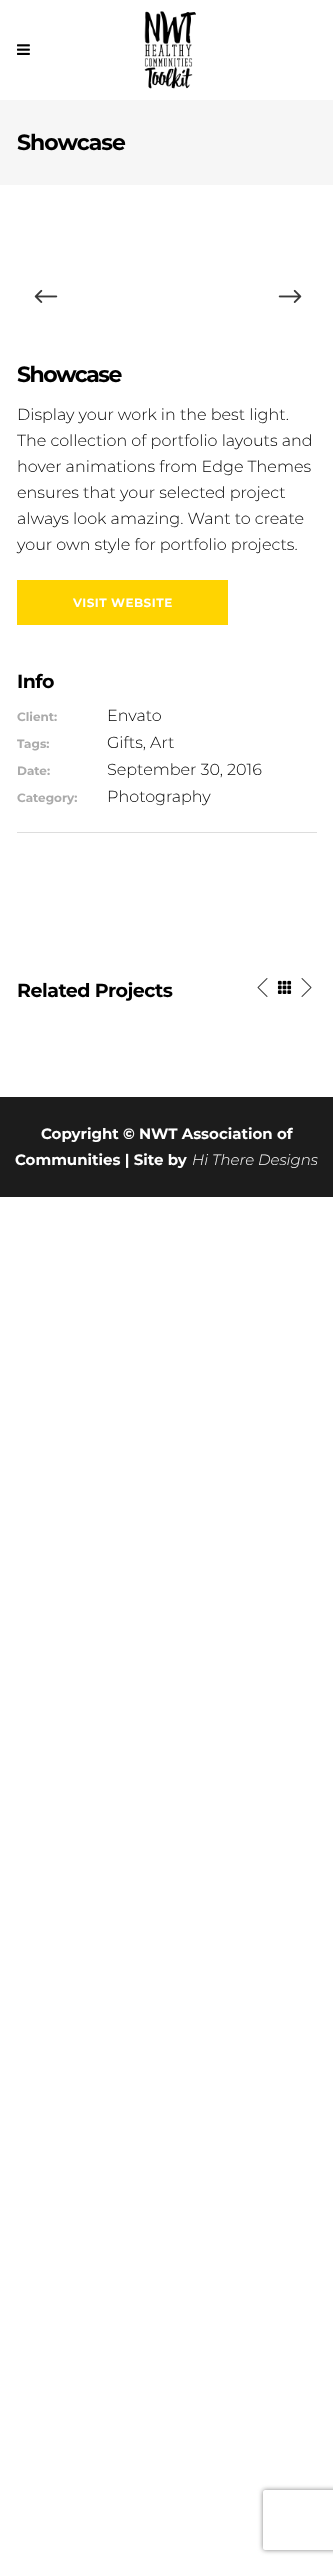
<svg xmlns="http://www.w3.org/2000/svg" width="333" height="2564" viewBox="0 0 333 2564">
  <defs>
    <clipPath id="clip1"><path d="M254 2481H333V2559H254ZM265 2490H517C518 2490 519 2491 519 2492V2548C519 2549 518 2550 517 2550H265C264 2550 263 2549 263 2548V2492C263 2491 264 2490 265 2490Z" clip-rule="evenodd"/></clipPath>
  </defs>
  <rect width="100%" height="100%" fill="#fff"/>
  <image x="17" y="44" width="13" height="11" href="img/1.png"/>
  <image x="144" y="11" width="52" height="78" href="img/2.png"/>
  <path d="M0 100h333v85H0z" fill="#f6f6f6"/>
  <image x="34" y="289" width="24" height="14" href="img/3.png"/>
  <image x="278" y="289" width="24" height="14" href="img/4.png"/>
  <path d="M17 580h211v45H17z" fill="#ffd401"/>
  <path d="M17 832h300v1H17z" fill="#ddd"/>
  <image x="257" y="978" width="11" height="19" href="img/5.png"/>
  <image x="277" y="980" width="15" height="14" href="img/6.png"/>
  <image x="301" y="978" width="11" height="19" href="img/7.png"/>
  <path d="M0 1097h333v100H0z" fill="#1c1c1c"/>
  <g clip-path="url(#clip1)">
    <rect x="263" y="2490" width="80" height="60" rx="2" fill="#808080" filter="blur(2.5px)"/>
  </g>
  <text x="17" y="150" font-family="Montserrat" font-size="22" font-weight="bold" letter-spacing="-1" fill="#000">Showcase</text>
  <text x="17" y="382" font-family="Montserrat" font-size="22" font-weight="bold" letter-spacing="-1.5" fill="#000">Showcase</text>
  <g font-family="Montserrat" font-size="16" font-weight="300" fill="#000">
    <text x="17" y="420">Display your work in the best light.</text>
    <text x="17" y="446">The collection of portfolio layouts and</text>
    <text x="17" y="472">hover animations from Edge Themes</text>
    <text x="17" y="498">ensures that your selected project</text>
    <text x="17" y="524">always look amazing. Want to create</text>
    <text x="17" y="550">your own style for portfolio projects.</text>
  </g>
  <text x="73" y="607" font-family="Montserrat" font-size="12" font-weight="bold" letter-spacing="0.5" fill="#fff">VISIT WEBSITE</text>
  <text x="17" y="688" font-family="Montserrat" font-size="19" font-weight="bold" letter-spacing="-0.5" fill="#000">Info</text>
  <text x="17" y="721" font-family="Montserrat" font-size="12" font-weight="bold" fill="#ababab">Client:</text>
  <text x="107" y="721" font-family="Montserrat" font-size="16" font-weight="300" fill="#000">Envato</text>
  <text x="17" y="748" font-family="Montserrat" font-size="12" font-weight="bold" fill="#ababab">Tags:</text>
  <text x="107" y="748" font-family="Montserrat" font-size="16" font-weight="300" fill="#000">Gifts, Art</text>
  <text x="17" y="775" font-family="Montserrat" font-size="12" font-weight="bold" fill="#ababab">Date:</text>
  <text x="107" y="775" font-family="Montserrat" font-size="16" font-weight="300" fill="#000">September 30, 2016</text>
  <text x="17" y="802" font-family="Montserrat" font-size="12" font-weight="bold" fill="#ababab">Category:</text>
  <text x="107" y="802" font-family="Montserrat" font-size="16" font-weight="300" fill="#000">Photography</text>
  <text x="17" y="997" font-family="Montserrat" font-size="19" font-weight="bold" letter-spacing="-0.5" fill="#000">Related Projects</text>
  <g font-family="Montserrat" font-size="15" font-weight="bold" fill="#fff">
    <text x="41" y="1139">Copyright © NWT Association of</text>
    <text x="15" y="1165">Communities | Site by</text>
  </g>
  <text x="192" y="1165" font-family="Montserrat" font-size="15" font-weight="300" font-style="italic" fill="#fff">Hi There Designs</text>
</svg>
